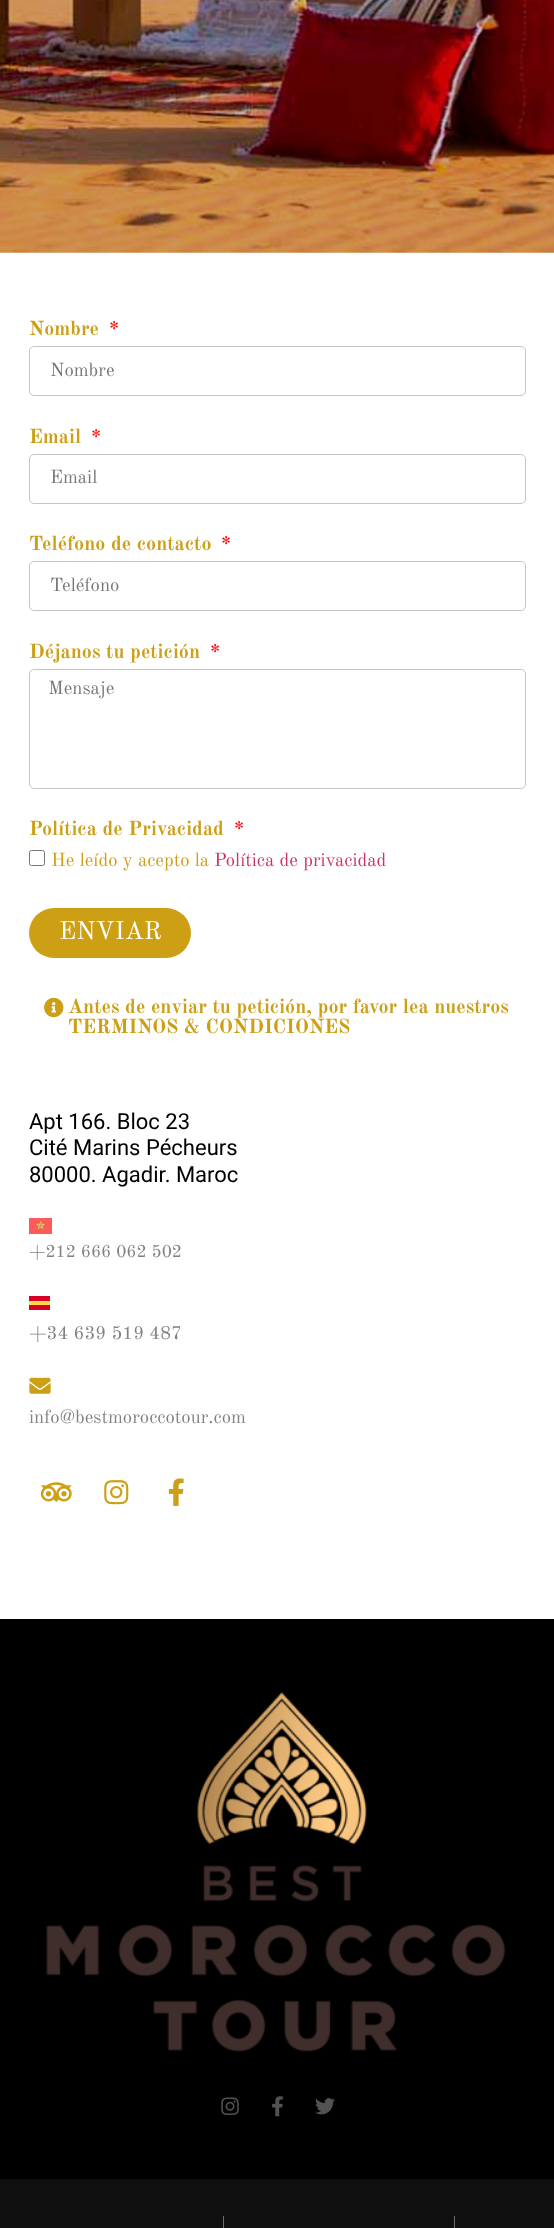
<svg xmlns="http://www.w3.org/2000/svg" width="554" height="2228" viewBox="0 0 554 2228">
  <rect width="100%" height="100%" fill="#fff"/>
  <image x="0" y="0" width="554" height="253" href="img/1.png"/>
  <rect x="29.5" y="346.5" width="496" height="49" rx="4.5" fill="none" stroke="#c5c5c5"/>
  <rect x="29.5" y="454.5" width="496" height="49" rx="4.5" fill="none" stroke="#c5c5c5"/>
  <rect x="29.5" y="561.5" width="496" height="49" rx="4.5" fill="none" stroke="#c5c5c5"/>
  <rect x="29.5" y="669.5" width="496" height="119" rx="4.5" fill="none" stroke="#c5c5c5"/>
  <rect x="29.5" y="850.5" width="15" height="15" rx="2" fill="none" stroke="#767676"/>
  <rect x="29" y="908" width="162" height="50" rx="25" fill="#cd9f15"/>
  <image x="44" y="997" width="20" height="21" href="img/2.png"/>
  <image x="29" y="1218" width="23" height="16" href="img/3.png"/>
  <path d="M29 1301h21v4H29z" fill="#ffda44"/>
  <path d="M29 1296h21v5H29z" fill="#d80027"/>
  <path d="M29 1305h21v5H29z" fill="#d80027"/>
  <image x="29" y="1377" width="22" height="17" href="img/4.png"/>
  <image x="40" y="1482" width="32" height="20" href="img/5.png"/>
  <image x="104" y="1480" width="25" height="25" href="img/6.png"/>
  <image x="168" y="1478" width="16" height="28" href="img/7.png"/>
  <path d="M0 1619h554v560H0z" fill="#000"/>
  <image x="46" y="1691" width="460" height="361" href="img/8.png"/>
  <image x="221" y="2097" width="18" height="18" href="img/9.png"/>
  <image x="272" y="2096" width="11" height="21" href="img/10.png"/>
  <image x="315" y="2098" width="20" height="17" href="img/11.png"/>
  <path d="M0 2179h554v49H0z" fill="#0f0f0f"/>
  <path d="M223 2216h1v12H223z" fill="#6c6c6c"/>
  <path d="M454 2216h1v12H454z" fill="#6c6c6c"/>
  <text x="29" y="335" font-family="Old Standard TT" font-size="20" font-weight="bold" fill="#cd9f15">Nombre</text>
  <text x="109" y="335" font-family="Old Standard TT" font-size="20" font-weight="bold" fill="#f00">*</text>
  <text x="50" y="376" font-family="Old Standard TT" font-size="18.75" fill="#767676">Nombre</text>
  <text x="29" y="443" font-family="Old Standard TT" font-size="20" font-weight="bold" fill="#cd9f15">Email</text>
  <text x="91" y="443" font-family="Old Standard TT" font-size="20" font-weight="bold" fill="#f00">*</text>
  <text x="50" y="483" font-family="Old Standard TT" font-size="18.75" fill="#767676">Email</text>
  <text x="29" y="550" font-family="Old Standard TT" font-size="20" font-weight="bold" fill="#cd9f15">Teléfono de contacto</text>
  <text x="221" y="550" font-family="Old Standard TT" font-size="20" font-weight="bold" fill="#f00">*</text>
  <text x="50" y="591" font-family="Old Standard TT" font-size="18.75" fill="#767676">Teléfono</text>
  <text x="29" y="658" font-family="Old Standard TT" font-size="20" font-weight="bold" fill="#cd9f15">Déjanos tu petición</text>
  <text x="210" y="658" font-family="Old Standard TT" font-size="20" font-weight="bold" fill="#f00">*</text>
  <text x="48" y="694" font-family="Old Standard TT" font-size="18.75" fill="#767676">Mensaje</text>
  <text x="29" y="835" font-family="Old Standard TT" font-size="20" font-weight="bold" fill="#cd9f15">Política de Privacidad</text>
  <text x="234" y="835" font-family="Old Standard TT" font-size="20" font-weight="bold" fill="#f00">*</text>
  <text x="51" y="866" font-family="Old Standard TT" font-size="18.75" fill="#cd9f15">He leído y acepto la</text>
  <text x="214" y="866" font-family="Old Standard TT" font-size="18.75" fill="#c36">Política de privacidad</text>
  <text x="59" y="939" font-family="Old Standard TT" font-size="25" fill="#fff">ENVIAR</text>
  <g font-family="Old Standard TT" font-size="20" font-weight="bold" fill="#cd9f15">
    <text x="68" y="1013">Antes de enviar tu petición, por favor lea nuestros</text>
    <text x="68" y="1033">TERMINOS &amp; CONDICIONES</text>
  </g>
  <g font-family="Roboto" font-size="22" fill="#000">
    <text x="29" y="1129">Apt 166. Bloc 23</text>
    <text x="29" y="1155">Cité Marins Pécheurs</text>
    <text x="29" y="1182">80000. Agadir. Maroc</text>
  </g>
  <text x="29" y="1257" font-family="Old Standard TT" font-size="17.5" fill="#828282">+212 666 062 502</text>
  <g font-family="Old Standard TT" font-size="18.75" fill="#828282">
    <text x="29" y="1339">+34 639 519 487</text>
    <text x="29" y="1423">info@bestmoroccotour.com</text>
  </g>
</svg>
